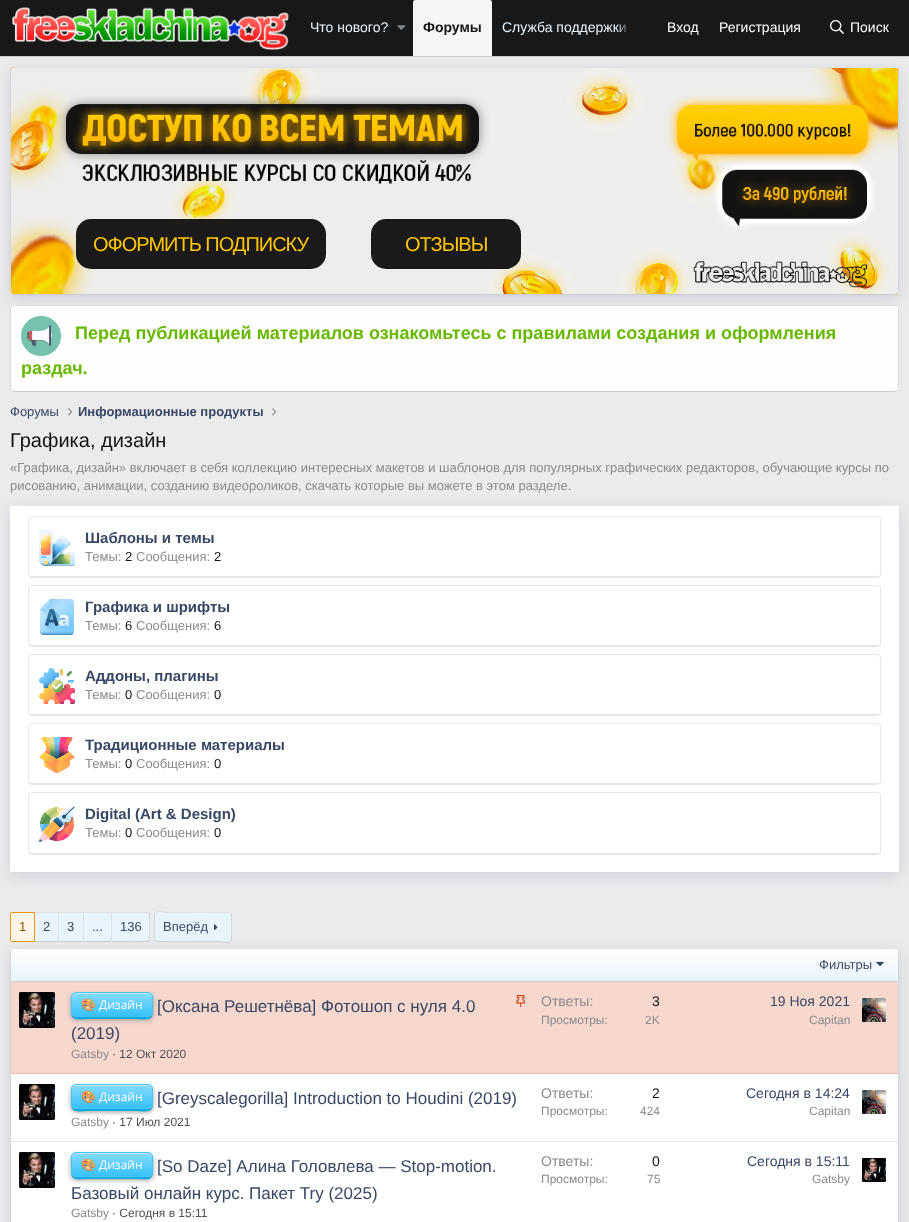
<svg xmlns="http://www.w3.org/2000/svg" width="909" height="1222" viewBox="0 0 909 1222">
  <defs>
    <linearGradient id="g1" gradientUnits="userSpaceOnUse" x1="455" y1="981" x2="455" y2="949"><stop offset="0" stop-color="#e8f4fc"/><stop offset="1" stop-color="#fff"/></linearGradient>
    <clipPath id="clip1"><rect x="71" y="992" width="82" height="25" rx="5"/></clipPath>
    <linearGradient id="g2" gradientUnits="userSpaceOnUse" x1="112" y1="1016" x2="112" y2="993"><stop offset="0" stop-color="#39c1f9"/><stop offset="1" stop-color="#86dbfd"/></linearGradient>
    <clipPath id="clip2"><rect x="71" y="1084" width="82" height="25" rx="5"/></clipPath>
    <linearGradient id="g3" gradientUnits="userSpaceOnUse" x1="112" y1="1108" x2="112" y2="1085"><stop offset="0" stop-color="#39c1f9"/><stop offset="1" stop-color="#86dbfd"/></linearGradient>
    <clipPath id="clip3"><rect x="71" y="1152" width="82" height="25" rx="5"/></clipPath>
    <linearGradient id="g4" gradientUnits="userSpaceOnUse" x1="112" y1="1176" x2="112" y2="1153"><stop offset="0" stop-color="#39c1f9"/><stop offset="1" stop-color="#86dbfd"/></linearGradient>
    <linearGradient id="g5" gradientUnits="userSpaceOnUse" x1="617" y1="28" x2="657" y2="28"><stop offset="0" stop-color="#181818" stop-opacity="0"/><stop offset="0.33" stop-color="#181818"/></linearGradient>
  </defs>
  <rect width="100%" height="100%" fill="#ebebeb"/>
  <path d="M0 56h909v1H0z" fill="#ccc"/>
  <rect x="10" y="71" width="889" height="228" rx="4" fill="#586a9933" filter="blur(7.5px)"/>
  <path d="M0 0h909v56H0z" fill="#181818"/>
  <image x="12" y="7" width="277" height="44" href="img/1.png"/>
  <image x="397" y="25" width="9" height="5" href="img/2.png"/>
  <path d="M415 0H490C491 0 492 1 492 2V56H413V2C413 1 414 0 415 0Z" fill="#f5f5f5"/>
  <image x="830" y="20" width="14" height="14" href="img/3.png"/>
  <image x="10" y="67" width="889" height="228" href="img/4.png"/>
  <path d="M11.5 68.5L14 67.5H895L897.5 68.5" fill="none" stroke="#e0e0e0"/>
  <path d="M897.5 68.5C898 69 898.5 70 898.5 71V291C898.5 292 898 293 897.5 293.5" fill="none" stroke="#d6d6d6"/>
  <path d="M897.5 293.5L895 294.5H14L11.5 293.5" fill="none" stroke="#ccc"/>
  <path d="M11.5 293.5C11 293 10.5 292 10.5 291V71C10.5 70 11 69 11.5 68.5" fill="none" stroke="#d6d6d6"/>
  <rect x="76" y="219" width="250" height="50" rx="15" fill="#1a1a1a"/>
  <rect x="371" y="219" width="150" height="50" rx="15" fill="#1a1a1a"/>
  <rect x="10" y="305" width="889" height="87" rx="4" fill="#fefefe"/>
  <path d="M11.5 306.5L14 305.5H895L897.5 306.5" fill="none" stroke="#dfdfdf"/>
  <path d="M897.5 306.5L898.5 308.5V388.5L897.5 390.5" fill="none" stroke="#d8d8d8"/>
  <path d="M897.5 390.5L895 391.5H14L11.5 390.5" fill="none" stroke="#cbcbcb"/>
  <path d="M11.5 390.5L10.5 388.5V308.5L11.5 306.5" fill="none" stroke="#d8d8d8"/>
  <image x="21" y="316" width="40" height="40" href="img/5.png"/>
  <image x="68" y="408" width="4" height="8" href="img/6.png"/>
  <image x="272" y="408" width="4" height="8" href="img/6.png"/>
  <rect x="10" y="510" width="889" height="366" rx="3" fill="#586a9933" filter="blur(7.5px)"/>
  <path d="M18 516h873v346H18z" fill="#fff"/>
  <path d="M14 510H895V868H14Z" fill="none" stroke="#fff" stroke-width="8"/>
  <path d="M12 514h886v2H12z" fill="#fff"/>
  <path d="M12 862h886v2H12z" fill="#fff"/>
  <rect x="28.5" y="516.5" width="852" height="61" rx="3.5" fill="none" stroke="#e7e7e7"/>
  <path d="M30 576h849v1H30z" fill="#e7e7e7"/>
  <image x="39" y="530" width="36" height="36" href="img/7.png"/>
  <rect x="28.5" y="585.5" width="852" height="61" rx="3.5" fill="none" stroke="#e7e7e7"/>
  <path d="M30 645h849v1H30z" fill="#e7e7e7"/>
  <image x="40" y="599" width="34" height="36" href="img/8.png"/>
  <rect x="28.5" y="654.5" width="852" height="61" rx="3.5" fill="none" stroke="#e7e7e7"/>
  <path d="M30 714h849v1H30z" fill="#e7e7e7"/>
  <image x="39" y="668" width="36" height="36" href="img/9.png"/>
  <rect x="28.5" y="723.5" width="852" height="61" rx="3.5" fill="none" stroke="#e7e7e7"/>
  <path d="M30 783h849v1H30z" fill="#e7e7e7"/>
  <image x="39" y="737" width="36" height="36" href="img/10.png"/>
  <rect x="28.5" y="792.5" width="852" height="62" rx="3.5" fill="none" stroke="#e7e7e7"/>
  <path d="M30 853h849v1H30z" fill="#e7e7e7"/>
  <image x="39" y="806" width="36" height="36" href="img/11.png"/>
  <rect x="10" y="952" width="889" height="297" rx="4" fill="#586a9933" filter="blur(7.5px)"/>
  <path d="M12 912.5H34.5V941.5H12C11 941.5 10.5 941 10.5 940V914C10.5 913 11 912.5 12 912.5Z" fill="#fef4e7" stroke="#f2930d"/>
  <path d="M35 913h23v28H35z" fill="#e8f4fc"/>
  <path d="M35 912h76v1H35z" fill="#e0e0e0"/>
  <path d="M35 941h76v1H35z" fill="#ccc"/>
  <path d="M59 913h24v28H59z" fill="#e8f4fc"/>
  <path d="M58 912h1v30H58z" fill="#e0e0e0"/>
  <path d="M84 913h27v28H84z" fill="#e8f4fc"/>
  <path d="M83 912h1v30H83z" fill="#e0e0e0"/>
  <path d="M111 912H148C149 912 150 913 150 914V940C150 941 149 942 148 942H111Z" fill="#e8f4fc"/>
  <path d="M111 912L112 913C116 913 148 912.5 148.5 913.5L149.5 912.5L148 912Z" fill="#e0e0e0"/>
  <path d="M150 940V914L149.5 912.5L148.5 913.5C149.5 914 149.5 940 148.5 940.5L149.5 941.5Z" fill="#d6d6d6"/>
  <path d="M148 942L149.5 941.5L148.5 940.5C148 941.5 116 941 112 941L111 942Z" fill="#ccc"/>
  <path d="M111 912V942L112 941V913Z" fill="#e0e0e0"/>
  <rect x="154" y="912" width="78" height="30" rx="2" fill="#e8f4fc"/>
  <path d="M155 913C158 910 164 912.5 168.5 912.5C175 912.5 230 912 231 913" fill="none" stroke="#e0e0e0"/>
  <path d="M231 913L231.5 914V940L231 941" fill="none" stroke="#d6d6d6"/>
  <path d="M231 941C228 944 222 941.5 217.5 941.5C211 941.5 156 942 155 941" fill="none" stroke="#ccc"/>
  <path d="M155 941L154.5 940V914L155 913" fill="none" stroke="#d6d6d6"/>
  <image x="214" y="924" width="4" height="7" href="img/12.png"/>
  <rect x="10" y="948" width="889" height="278" rx="4" fill="#fff"/>
  <path d="M11.5 949.5L14 948.5H895L897.5 949.5" fill="none" stroke="#e0e0e0"/>
  <path d="M897.5 949.5L898.5 952V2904L897.5 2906.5" fill="none" stroke="#d6d6d6"/>
  <path d="M11.5 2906.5L10.5 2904V952L11.5 949.5" fill="none" stroke="#d6d6d6"/>
  <path d="M14 949H895C896.5 949 898 950.5 898 952V981H11V952C11 950.5 12.5 949 14 949Z" fill="url(#g1)"/>
  <path d="M11 981h887v1H11z" fill="#ccc"/>
  <image x="876" y="961" width="8" height="6" href="img/13.png"/>
  <path d="M11 982h887v91H11z" fill="#f7d8cf"/>
  <path d="M11 1073h887v1H11z" fill="#f1baaa"/>
  <rect x="19" y="992" width="36" height="36" rx="1" fill="#fff"/>
  <image x="19" y="992" width="36" height="36" href="img/14.png"/>
  <rect x="71" y="995" width="82" height="25" rx="5" fill="#999" filter="blur(2.5px)"/>
  <path d="M71 1012C71 1022 80 1019 88 1019H136C144 1019 153 1022 153 1012C153 1015 151 1017 148 1017H76C73 1017 71 1015 71 1012Z" fill="#0faada"/>
  <g clip-path="url(#clip1)">
    <path d="M71 993h82v23H71z" fill="url(#g2)"/>
  </g>
  <path d="M76 994H148C150 994 152 996 152 998C152 990 141 993 136 993H88C83 993 72 990 72 998C72 996 74 994 76 994Z" fill="#cae6ef"/>
  <rect x="71.5" y="992.5" width="81" height="24" rx="4.5" fill="none" stroke="#44c5f9"/>
  <image x="516" y="995" width="9" height="12" href="img/15.png"/>
  <rect x="862" y="998" width="24" height="24" rx="0.5" fill="#fff"/>
  <image x="862" y="998" width="24" height="24" href="img/16.png"/>
  <image x="19" y="1084" width="36" height="36" href="img/17.png"/>
  <rect x="71" y="1087" width="82" height="25" rx="5" fill="#999" filter="blur(2.5px)"/>
  <path d="M71 1104C71 1114 80 1111 88 1111H136C144 1111 153 1114 153 1104C153 1107 151 1109 148 1109H76C73 1109 71 1107 71 1104Z" fill="#0faada"/>
  <g clip-path="url(#clip2)">
    <path d="M71 1085h82v23H71z" fill="url(#g3)"/>
  </g>
  <path d="M76 1086H148C150 1086 152 1088 152 1090C152 1082 141 1085 136 1085H88C83 1085 72 1082 72 1090C72 1088 74 1086 76 1086Z" fill="#cae6ef"/>
  <rect x="71.5" y="1084.5" width="81" height="24" rx="4.5" fill="none" stroke="#44c5f9"/>
  <image x="862" y="1090" width="24" height="24" href="img/18.png"/>
  <path d="M11 1141h887v1H11z" fill="#e5e5e5"/>
  <image x="19" y="1152" width="36" height="36" href="img/17.png"/>
  <rect x="71" y="1155" width="82" height="25" rx="5" fill="#999" filter="blur(2.5px)"/>
  <path d="M71 1172C71 1182 80 1179 88 1179H136C144 1179 153 1182 153 1172C153 1175 151 1177 148 1177H76C73 1177 71 1175 71 1172Z" fill="#0faada"/>
  <g clip-path="url(#clip3)">
    <path d="M71 1153h82v23H71z" fill="url(#g4)"/>
  </g>
  <path d="M76 1154H148C150 1154 152 1156 152 1158C152 1150 141 1153 136 1153H88C83 1153 72 1150 72 1158C72 1156 74 1154 76 1154Z" fill="#cae6ef"/>
  <rect x="71.5" y="1152.5" width="81" height="24" rx="4.5" fill="none" stroke="#44c5f9"/>
  <image x="862" y="1158" width="24" height="24" href="img/19.png"/>
  <text x="310" y="32" font-family="Liberation Sans" font-size="14" fill="#e8f4fc">Что нового?</text>
  <text x="423" y="32" font-family="Liberation Sans" font-size="14" font-weight="bold" fill="#141414">Форумы</text>
  <text x="502" y="32" font-family="Liberation Sans" font-size="14" fill="#e8f4fc">Служба поддержки</text>
  <path d="M617 24h9v8H617z" fill="url(#g5)"/>
  <g font-family="Liberation Sans" font-size="14" fill="#fff">
    <text x="667" y="32">Вход</text>
    <text x="719" y="32">Регистрация</text>
    <text x="850" y="32">Поиск</text>
  </g>
  <g font-family="Liberation Sans" font-size="20" letter-spacing="-1" fill="#ffc600">
    <text x="93" y="251">ОФОРМИТЬ ПОДПИСКУ</text>
    <text x="405" y="251">ОТЗЫВЫ</text>
  </g>
  <g font-family="Liberation Sans" font-size="18" font-weight="bold" fill="#68b800">
    <text x="75" y="339">Перед публикацией материалов ознакомьтесь с правилами создания и оформления</text>
    <text x="21" y="374">раздач.</text>
  </g>
  <text x="10" y="416" font-family="Liberation Sans" font-size="13" fill="#384764">Форумы</text>
  <text x="78" y="416" font-family="Liberation Sans" font-size="13" font-weight="bold" fill="#384764">Информационные продукты</text>
  <text x="10" y="447" font-family="Liberation Sans" font-size="20" fill="#141414">Графика, дизайн</text>
  <g font-family="Liberation Sans" font-size="13" fill="#8a8a8a">
    <text x="10" y="472">«Графика, дизайн» включает в себя коллекцию интересных макетов и шаблонов для популярных графических редакторов, обучающие курсы по</text>
    <text x="10" y="490">рисованию, анимации, созданию видеороликов, скачать которые вы можете в этом разделе.</text>
  </g>
  <text x="85" y="543" font-family="Liberation Sans" font-size="15" font-weight="bold" fill="#384764">Шаблоны и темы</text>
  <text x="85" y="561" font-family="Liberation Sans" font-size="13" fill="#8a8a8a">Темы:</text>
  <text x="125" y="561" font-family="Liberation Sans" font-size="13" fill="#141414">2</text>
  <text x="136" y="561" font-family="Liberation Sans" font-size="13" fill="#8a8a8a">Сообщения:</text>
  <text x="214" y="561" font-family="Liberation Sans" font-size="13" fill="#141414">2</text>
  <text x="85" y="612" font-family="Liberation Sans" font-size="15" font-weight="bold" fill="#384764">Графика и шрифты</text>
  <text x="85" y="630" font-family="Liberation Sans" font-size="13" fill="#8a8a8a">Темы:</text>
  <text x="125" y="630" font-family="Liberation Sans" font-size="13" fill="#141414">6</text>
  <text x="136" y="630" font-family="Liberation Sans" font-size="13" fill="#8a8a8a">Сообщения:</text>
  <text x="214" y="630" font-family="Liberation Sans" font-size="13" fill="#141414">6</text>
  <text x="85" y="681" font-family="Liberation Sans" font-size="15" font-weight="bold" fill="#384764">Аддоны, плагины</text>
  <text x="85" y="699" font-family="Liberation Sans" font-size="13" fill="#8a8a8a">Темы:</text>
  <text x="125" y="699" font-family="Liberation Sans" font-size="13" fill="#141414">0</text>
  <text x="136" y="699" font-family="Liberation Sans" font-size="13" fill="#8a8a8a">Сообщения:</text>
  <text x="214" y="699" font-family="Liberation Sans" font-size="13" fill="#141414">0</text>
  <text x="85" y="750" font-family="Liberation Sans" font-size="15" font-weight="bold" fill="#384764">Традиционные материалы</text>
  <text x="85" y="768" font-family="Liberation Sans" font-size="13" fill="#8a8a8a">Темы:</text>
  <text x="125" y="768" font-family="Liberation Sans" font-size="13" fill="#141414">0</text>
  <text x="136" y="768" font-family="Liberation Sans" font-size="13" fill="#8a8a8a">Сообщения:</text>
  <text x="214" y="768" font-family="Liberation Sans" font-size="13" fill="#141414">0</text>
  <text x="85" y="819" font-family="Liberation Sans" font-size="15" font-weight="bold" fill="#384764">Digital (Art &amp; Design)</text>
  <text x="85" y="837" font-family="Liberation Sans" font-size="13" fill="#8a8a8a">Темы:</text>
  <text x="125" y="837" font-family="Liberation Sans" font-size="13" fill="#141414">0</text>
  <text x="136" y="837" font-family="Liberation Sans" font-size="13" fill="#8a8a8a">Сообщения:</text>
  <text x="214" y="837" font-family="Liberation Sans" font-size="13" fill="#141414">0</text>
  <text x="19" y="931" font-family="Liberation Sans" font-size="13" fill="#915808">1</text>
  <g font-family="Liberation Sans" font-size="13" fill="#384764">
    <text x="43" y="931">2</text>
    <text x="67" y="931">3</text>
    <text x="92" y="931">...</text>
    <text x="120" y="931">136</text>
    <text x="163" y="931">Вперёд</text>
    <text x="819" y="969">Фильтры</text>
  </g>
  <text x="81" y="1009" font-family="Noto Color Emoji" font-size="12" fill="#fff">🎨</text>
  <text x="99" y="1009" font-family="Open Sans" font-size="12" fill="#fff">Дизайн</text>
  <g font-family="Liberation Sans" font-size="17" fill="#384764">
    <text x="157" y="1012">[Оксана Решетнёва] Фотошоп с нуля 4.0</text>
    <text x="71" y="1039">(2019)</text>
  </g>
  <text x="71" y="1058" font-family="Liberation Sans" font-size="12" fill="#8a8a8a">Gatsby</text>
  <text x="112" y="1058" font-family="Liberation Sans" font-size="12" fill="#4f4f4f">· 12 Окт 2020</text>
  <text x="541" y="1006" font-family="Liberation Sans" font-size="14" fill="#8a8a8a">Ответы:</text>
  <text x="652" y="1006" font-family="Liberation Sans" font-size="14" fill="#141414">3</text>
  <g font-family="Liberation Sans" font-size="12" fill="#8a8a8a">
    <text x="541" y="1024">Просмотры:</text>
    <text x="645" y="1024">2K</text>
  </g>
  <text x="770" y="1006" font-family="Liberation Sans" font-size="14" fill="#384764">19 Ноя 2021</text>
  <text x="809" y="1024" font-family="Liberation Sans" font-size="12" fill="#8a8a8a">Capitan</text>
  <text x="81" y="1101" font-family="Noto Color Emoji" font-size="12" fill="#fff">🎨</text>
  <text x="99" y="1101" font-family="Open Sans" font-size="12" fill="#fff">Дизайн</text>
  <text x="157" y="1104" font-family="Liberation Sans" font-size="17" fill="#384764">[Greyscalegorilla] Introduction to Houdini (2019)</text>
  <text x="71" y="1126" font-family="Liberation Sans" font-size="12" fill="#8a8a8a">Gatsby</text>
  <text x="112" y="1126" font-family="Liberation Sans" font-size="12" fill="#4f4f4f">· 17 Июл 2021</text>
  <text x="541" y="1098" font-family="Liberation Sans" font-size="14" fill="#8a8a8a">Ответы:</text>
  <text x="652" y="1098" font-family="Liberation Sans" font-size="14" fill="#141414">2</text>
  <g font-family="Liberation Sans" font-size="12" fill="#8a8a8a">
    <text x="541" y="1115">Просмотры:</text>
    <text x="640" y="1115">424</text>
  </g>
  <text x="746" y="1098" font-family="Liberation Sans" font-size="14" fill="#384764">Сегодня в 14:24</text>
  <text x="809" y="1115" font-family="Liberation Sans" font-size="12" fill="#8a8a8a">Capitan</text>
  <text x="81" y="1169" font-family="Noto Color Emoji" font-size="12" fill="#fff">🎨</text>
  <text x="99" y="1169" font-family="Open Sans" font-size="12" fill="#fff">Дизайн</text>
  <g font-family="Liberation Sans" font-size="17" fill="#384764">
    <text x="157" y="1172">[So Daze] Алина Головлева ― Stop-motion.</text>
    <text x="71" y="1199">Базовый онлайн курс. Пакет Try (2025)</text>
  </g>
  <text x="71" y="1217" font-family="Liberation Sans" font-size="12" fill="#8a8a8a">Gatsby</text>
  <text x="112" y="1217" font-family="Liberation Sans" font-size="12" fill="#4f4f4f">· Сегодня в 15:11</text>
  <text x="541" y="1166" font-family="Liberation Sans" font-size="14" fill="#8a8a8a">Ответы:</text>
  <text x="652" y="1166" font-family="Liberation Sans" font-size="14" fill="#141414">0</text>
  <g font-family="Liberation Sans" font-size="12" fill="#8a8a8a">
    <text x="541" y="1183">Просмотры:</text>
    <text x="647" y="1183">75</text>
  </g>
  <text x="747" y="1166" font-family="Liberation Sans" font-size="14" fill="#384764">Сегодня в 15:11</text>
  <text x="812" y="1183" font-family="Liberation Sans" font-size="12" fill="#8a8a8a">Gatsby</text>
</svg>
